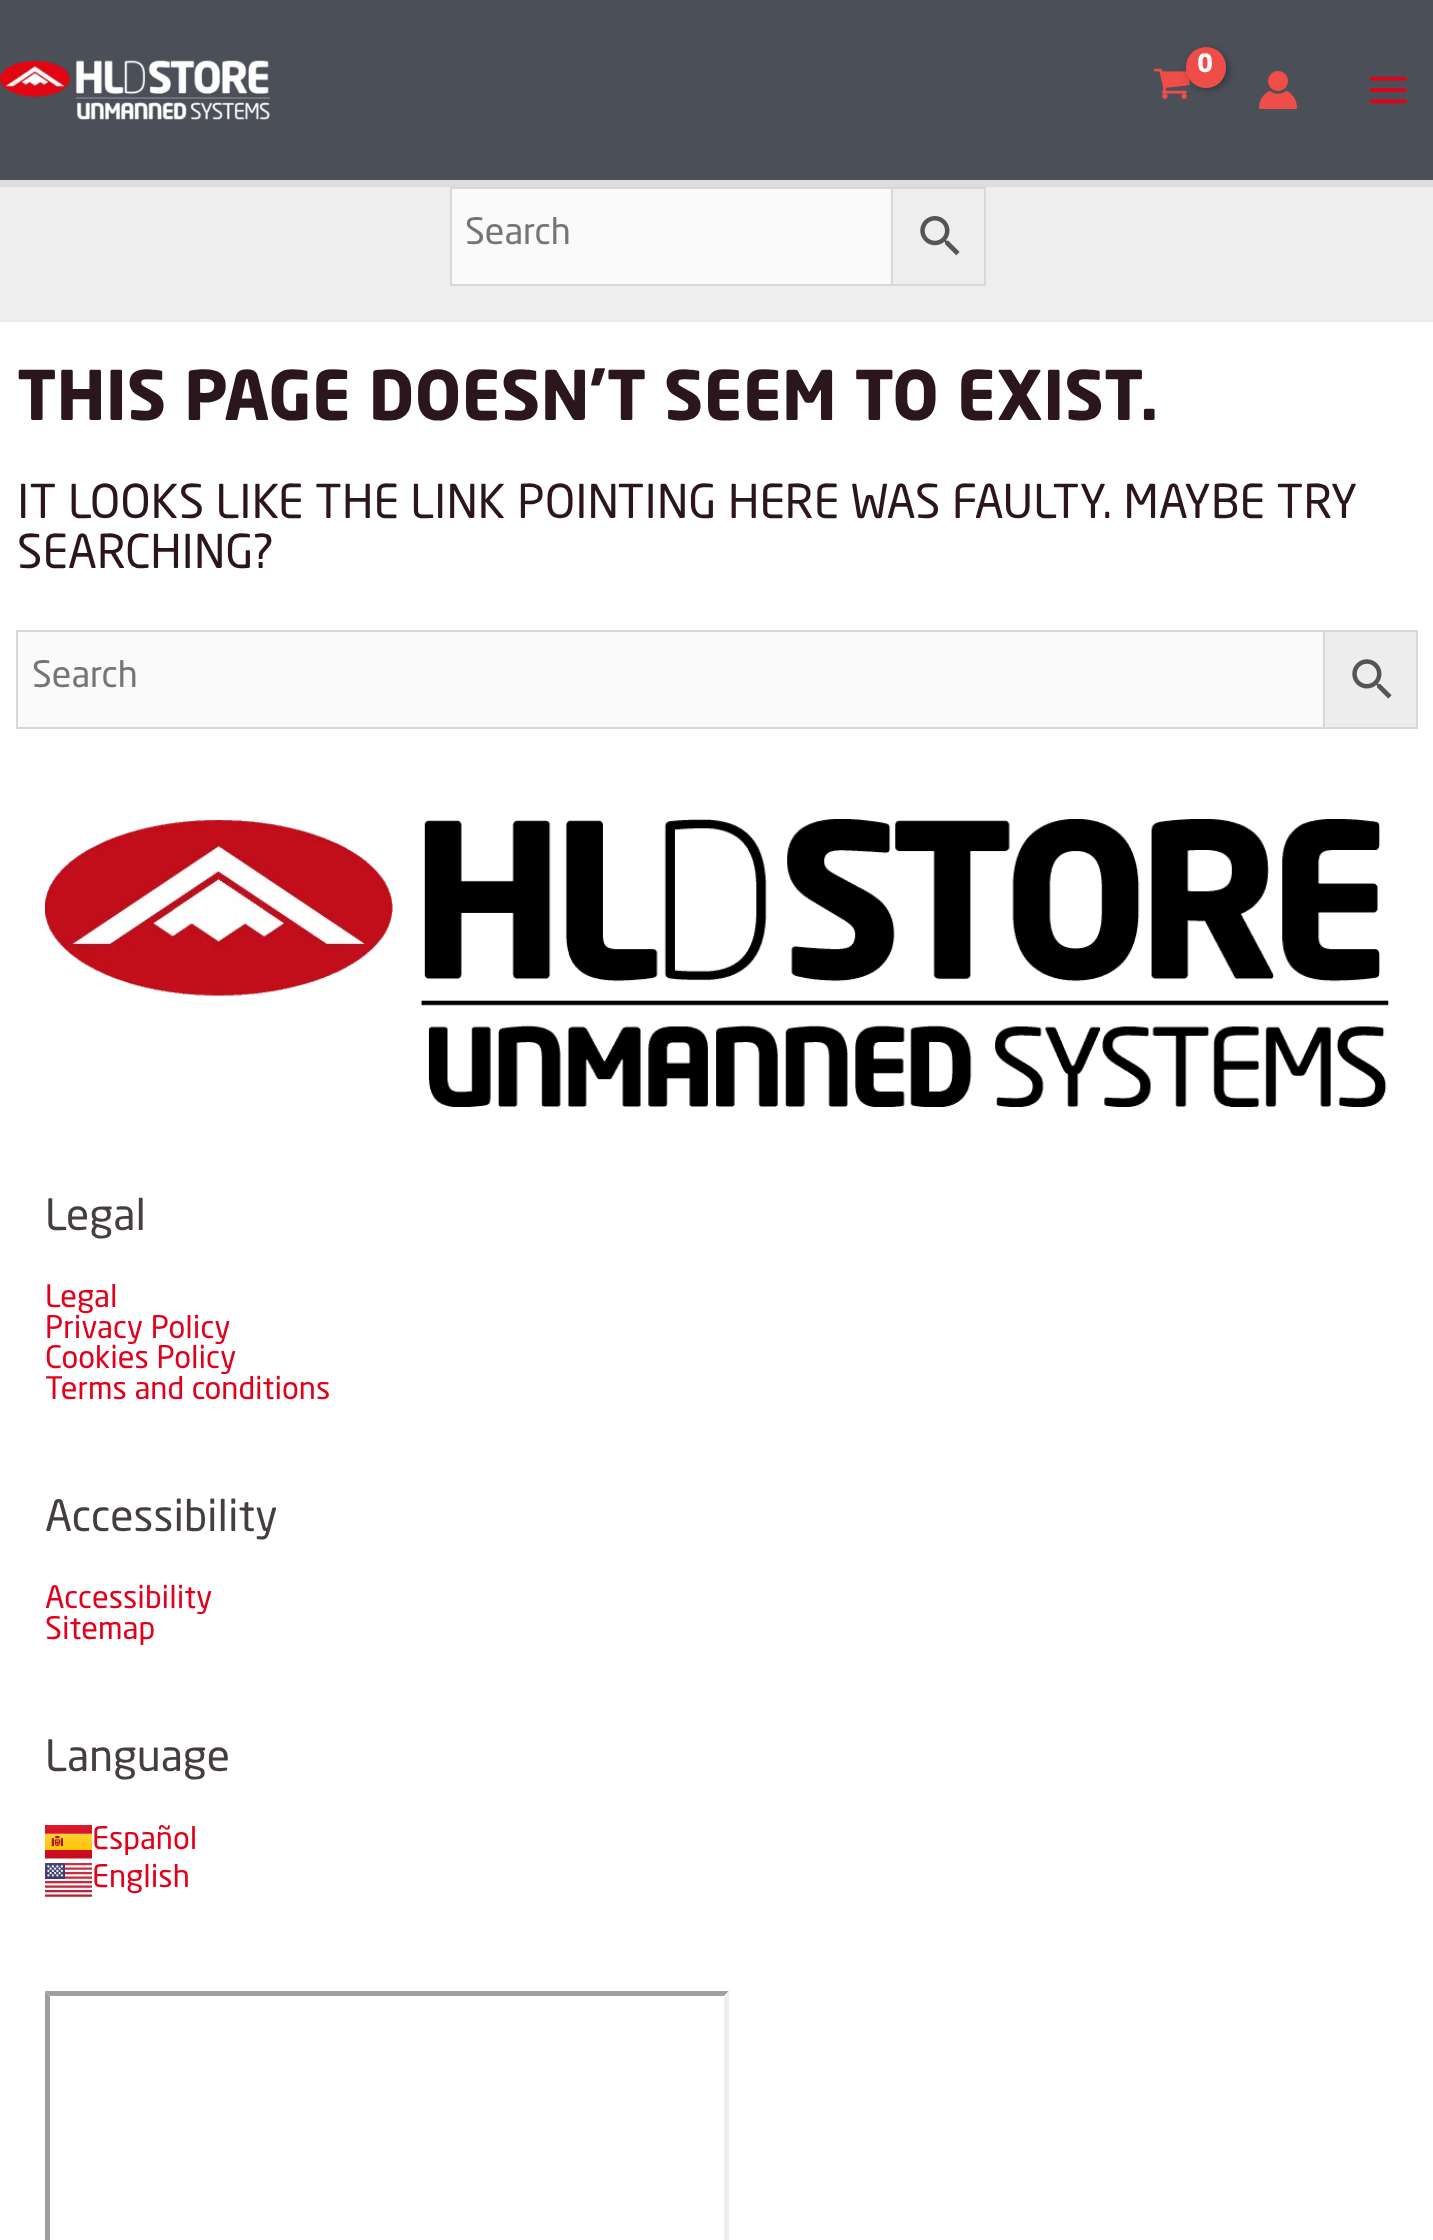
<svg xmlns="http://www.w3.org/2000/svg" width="1433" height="2240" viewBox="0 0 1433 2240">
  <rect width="100%" height="100%" fill="#fff"/>
  <path d="M0 0h1433v180H0z" fill="#4b4f58"/>
  <path d="M0 180h1433v7H0z" fill="#ddd"/>
  <image x="0" y="60" width="270" height="60" href="img/1.png"/>
  <image x="1153" y="68" width="37" height="31" href="img/2.png"/>
  <rect x="1188" y="50" width="41" height="40" rx="20" fill="#0000004d" filter="blur(3.5px)"/>
  <rect x="1186" y="47" width="40" height="41" rx="20" fill="#ef4d48"/>
  <image x="1259" y="71" width="38" height="38" href="img/3.png"/>
  <image x="1369" y="76" width="38" height="28" href="img/4.png"/>
  <path d="M0 187h1433v133H0z" fill="#eee"/>
  <path d="M0 320h1433v2H0z" fill="#eaeaea"/>
  <path d="M892 188h93v97H892z" fill="none" stroke="#d8d8d8" stroke-width="2"/>
  <path d="M451 188h441v97H451z" fill="#fafafa" stroke="#d8d8d8" stroke-width="2"/>
  <image x="920" y="216" width="40" height="40" href="img/5.png"/>
  <path d="M1324 631h93v97H1324z" fill="#ededed" stroke="#d8d8d8" stroke-width="2"/>
  <path d="M17 631h1307v97H17z" fill="#fafafa" stroke="#d8d8d8" stroke-width="2"/>
  <image x="1352" y="659" width="40" height="40" href="img/6.png"/>
  <image x="45" y="819" width="1344" height="288" href="img/7.png"/>
  <image x="45" y="1825" width="47" height="34" href="img/8.png"/>
  <image x="45" y="1863" width="47" height="34" href="img/9.png"/>
  <path d="M45 1991H729L724 1996H50Z" fill="#9f9f9f"/>
  <path d="M45 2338V1991L50 1996V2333Z" fill="#9f9f9f"/>
  <path d="M729 1991V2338L724 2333V1996Z" fill="#eee"/>
  <text x="1197" y="72" font-family="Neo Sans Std" font-size="25" font-weight="bold" letter-spacing="-1" fill="#fff">0</text>
  <text x="465" y="244" font-family="Neo Sans Std" font-size="36" fill="#757575">Search</text>
  <text x="17" y="420" font-family="Neo Sans Std" font-size="67.5" font-weight="bold" fill="#2b161b">THIS PAGE DOESN'T SEEM TO EXIST.</text>
  <g font-family="Neo Sans Std" font-size="46.2" fill="#2b161b">
    <text x="17" y="518">IT LOOKS LIKE THE LINK POINTING HERE WAS FAULTY. MAYBE TRY</text>
    <text x="17" y="568">SEARCHING?</text>
  </g>
  <text x="32" y="687" font-family="Neo Sans Std" font-size="36" fill="#757575">Search</text>
  <text x="45" y="1230" font-family="Neo Sans Std" font-size="42.75" fill="#453e3e">Legal</text>
  <g font-family="Neo Sans Std" font-size="30.75" fill="#e2001a">
    <text x="45" y="1307">Legal</text>
    <text x="45" y="1338">Privacy Policy</text>
    <text x="45" y="1368">Cookies Policy</text>
    <text x="45" y="1399">Terms and conditions</text>
  </g>
  <text x="45" y="1531" font-family="Neo Sans Std" font-size="42.75" fill="#453e3e">Accessibility</text>
  <g font-family="Neo Sans Std" font-size="30.75" fill="#e2001a">
    <text x="45" y="1608">Accessibility</text>
    <text x="45" y="1639">Sitemap</text>
  </g>
  <text x="45" y="1771" font-family="Neo Sans Std" font-size="42.75" fill="#453e3e">Language</text>
  <g font-family="Neo Sans Std" font-size="30.75" fill="#e2001a">
    <text x="92" y="1849">Español</text>
    <text x="92" y="1887">English</text>
  </g>
</svg>
